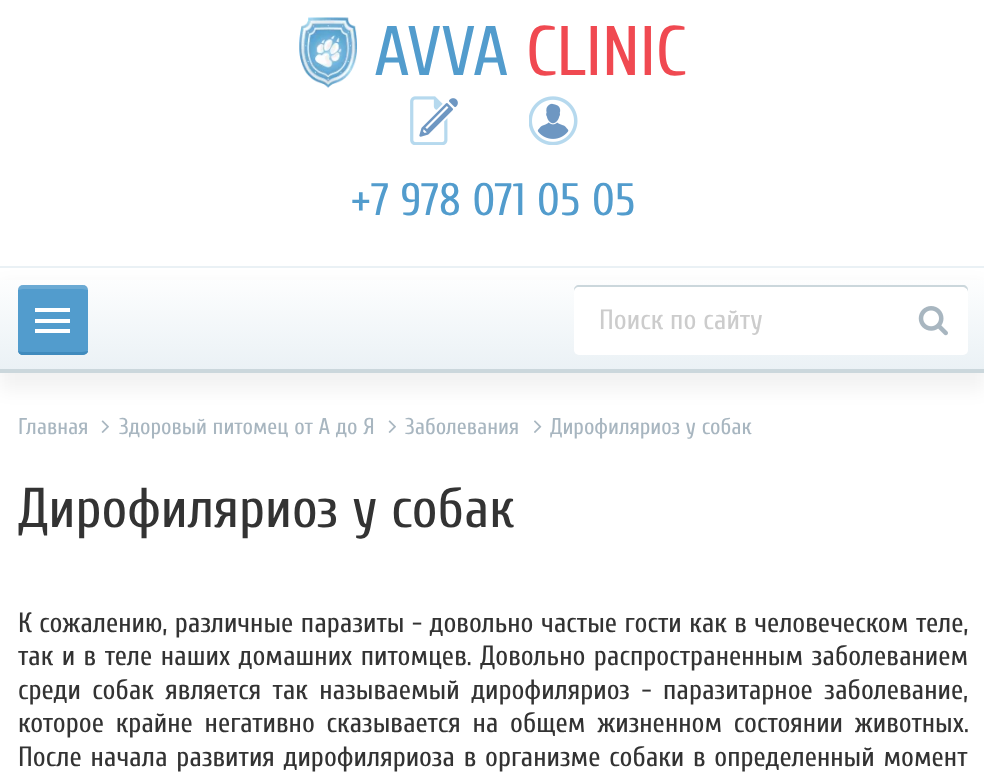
<svg xmlns="http://www.w3.org/2000/svg" width="984" height="775" viewBox="0 0 984 775">
  <defs>
    <linearGradient id="g1" gradientUnits="userSpaceOnUse" x1="493" y1="373" x2="493" y2="268"><stop offset="0" stop-color="#eaf1f5"/><stop offset="1" stop-color="#fff"/></linearGradient>
  </defs>
  <rect width="100%" height="100%" fill="#fff"/>
  <path d="M0 266h984v2H0z" fill="#eaf1f5"/>
  <image x="299" y="17" width="58" height="71" href="img/1.png"/>
  <image x="410" y="96" width="48" height="49" href="img/2.png"/>
  <image x="529" y="96" width="49" height="49" href="img/3.png"/>
  <path d="M0 285h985v105H0z" fill="#0000000d" filter="blur(9px)"/>
  <path d="M0 280h984v89H0z" fill="url(#g1)"/>
  <rect x="18" y="285" width="70" height="70" rx="5" fill="#529ccd"/>
  <path d="M23 289L18 290C18 288 19 286 22 285H84C85 286 87 287 88 288V290L82 289Z" fill="#ffffff26"/>
  <path d="M88 351V352C87 354 84 355 82 355H23C20 355 18 353 18 350C18 351 20 352 23 352H82C84 352 87 351 88 351Z" fill="#408bbd"/>
  <path d="M35 308h35v4H35z" fill="#fff"/>
  <path d="M35 319h35v4H35z" fill="#fff"/>
  <path d="M35 329h35v4H35z" fill="#fff"/>
  <rect x="574" y="285" width="394" height="70" rx="5" fill="#fff"/>
  <path d="M579 287H962C965 287 968 289 968 292V290C968 287 966 285 963 285H579C576 285 574 287 574 290V292C574 289 576 287 579 287Z" fill="#cbd7dc"/>
  <image x="918" y="306" width="30" height="30" href="img/4.png"/>
  <path d="M0 369h984v4H0z" fill="#cbd7dc"/>
  <image x="101" y="420" width="8" height="13" href="img/5.png"/>
  <image x="388" y="420" width="8" height="13" href="img/5.png"/>
  <image x="534" y="420" width="8" height="13" href="img/6.png"/>
  <text x="374" y="75" font-family="Cuprum" font-size="70" fill="#529ccd">AVVA</text>
  <text x="526" y="75" font-family="Cuprum" font-size="70" fill="#f04951">CLINIC</text>
  <text x="351" y="215" font-family="Cuprum" font-size="45.5" fill="#529ccd">+7 978 071 05 05</text>
  <text x="599" y="329" font-family="Cuprum" font-size="28" fill="#ccc">Поиск по сайту</text>
  <g font-family="Cuprum" font-size="22.75" fill="#a8b6c0">
    <text x="18" y="434">Главная</text>
    <text x="119" y="434">Здоровый питомец от А до Я</text>
    <text x="405" y="434">Заболевания</text>
    <text x="550" y="434">Дирофиляриоз у собак</text>
  </g>
  <text x="18" y="527" font-family="Cuprum" font-size="56" fill="#333">Дирофиляриоз у собак</text>
  <g font-family="Cuprum" font-size="28" fill="#333">
    <text x="18" y="632" word-spacing="0.5">К сожалению, различные паразиты - довольно частые гости как в человеческом теле,</text>
    <text x="18" y="665" word-spacing="1.5">так и в теле наших домашних питомцев. Довольно распространенным заболеванием</text>
    <text x="18" y="699" word-spacing="4.5">среди собак является так называемый дирофиляриоз - паразитарное заболевание,</text>
    <text x="18" y="732" word-spacing="4.75">которое крайне негативно сказывается на общем жизненном состоянии животных.</text>
    <text x="18" y="766" word-spacing="1.75">После начала развития дирофиляриоза в организме собаки в определенный момент</text>
  </g>
</svg>
